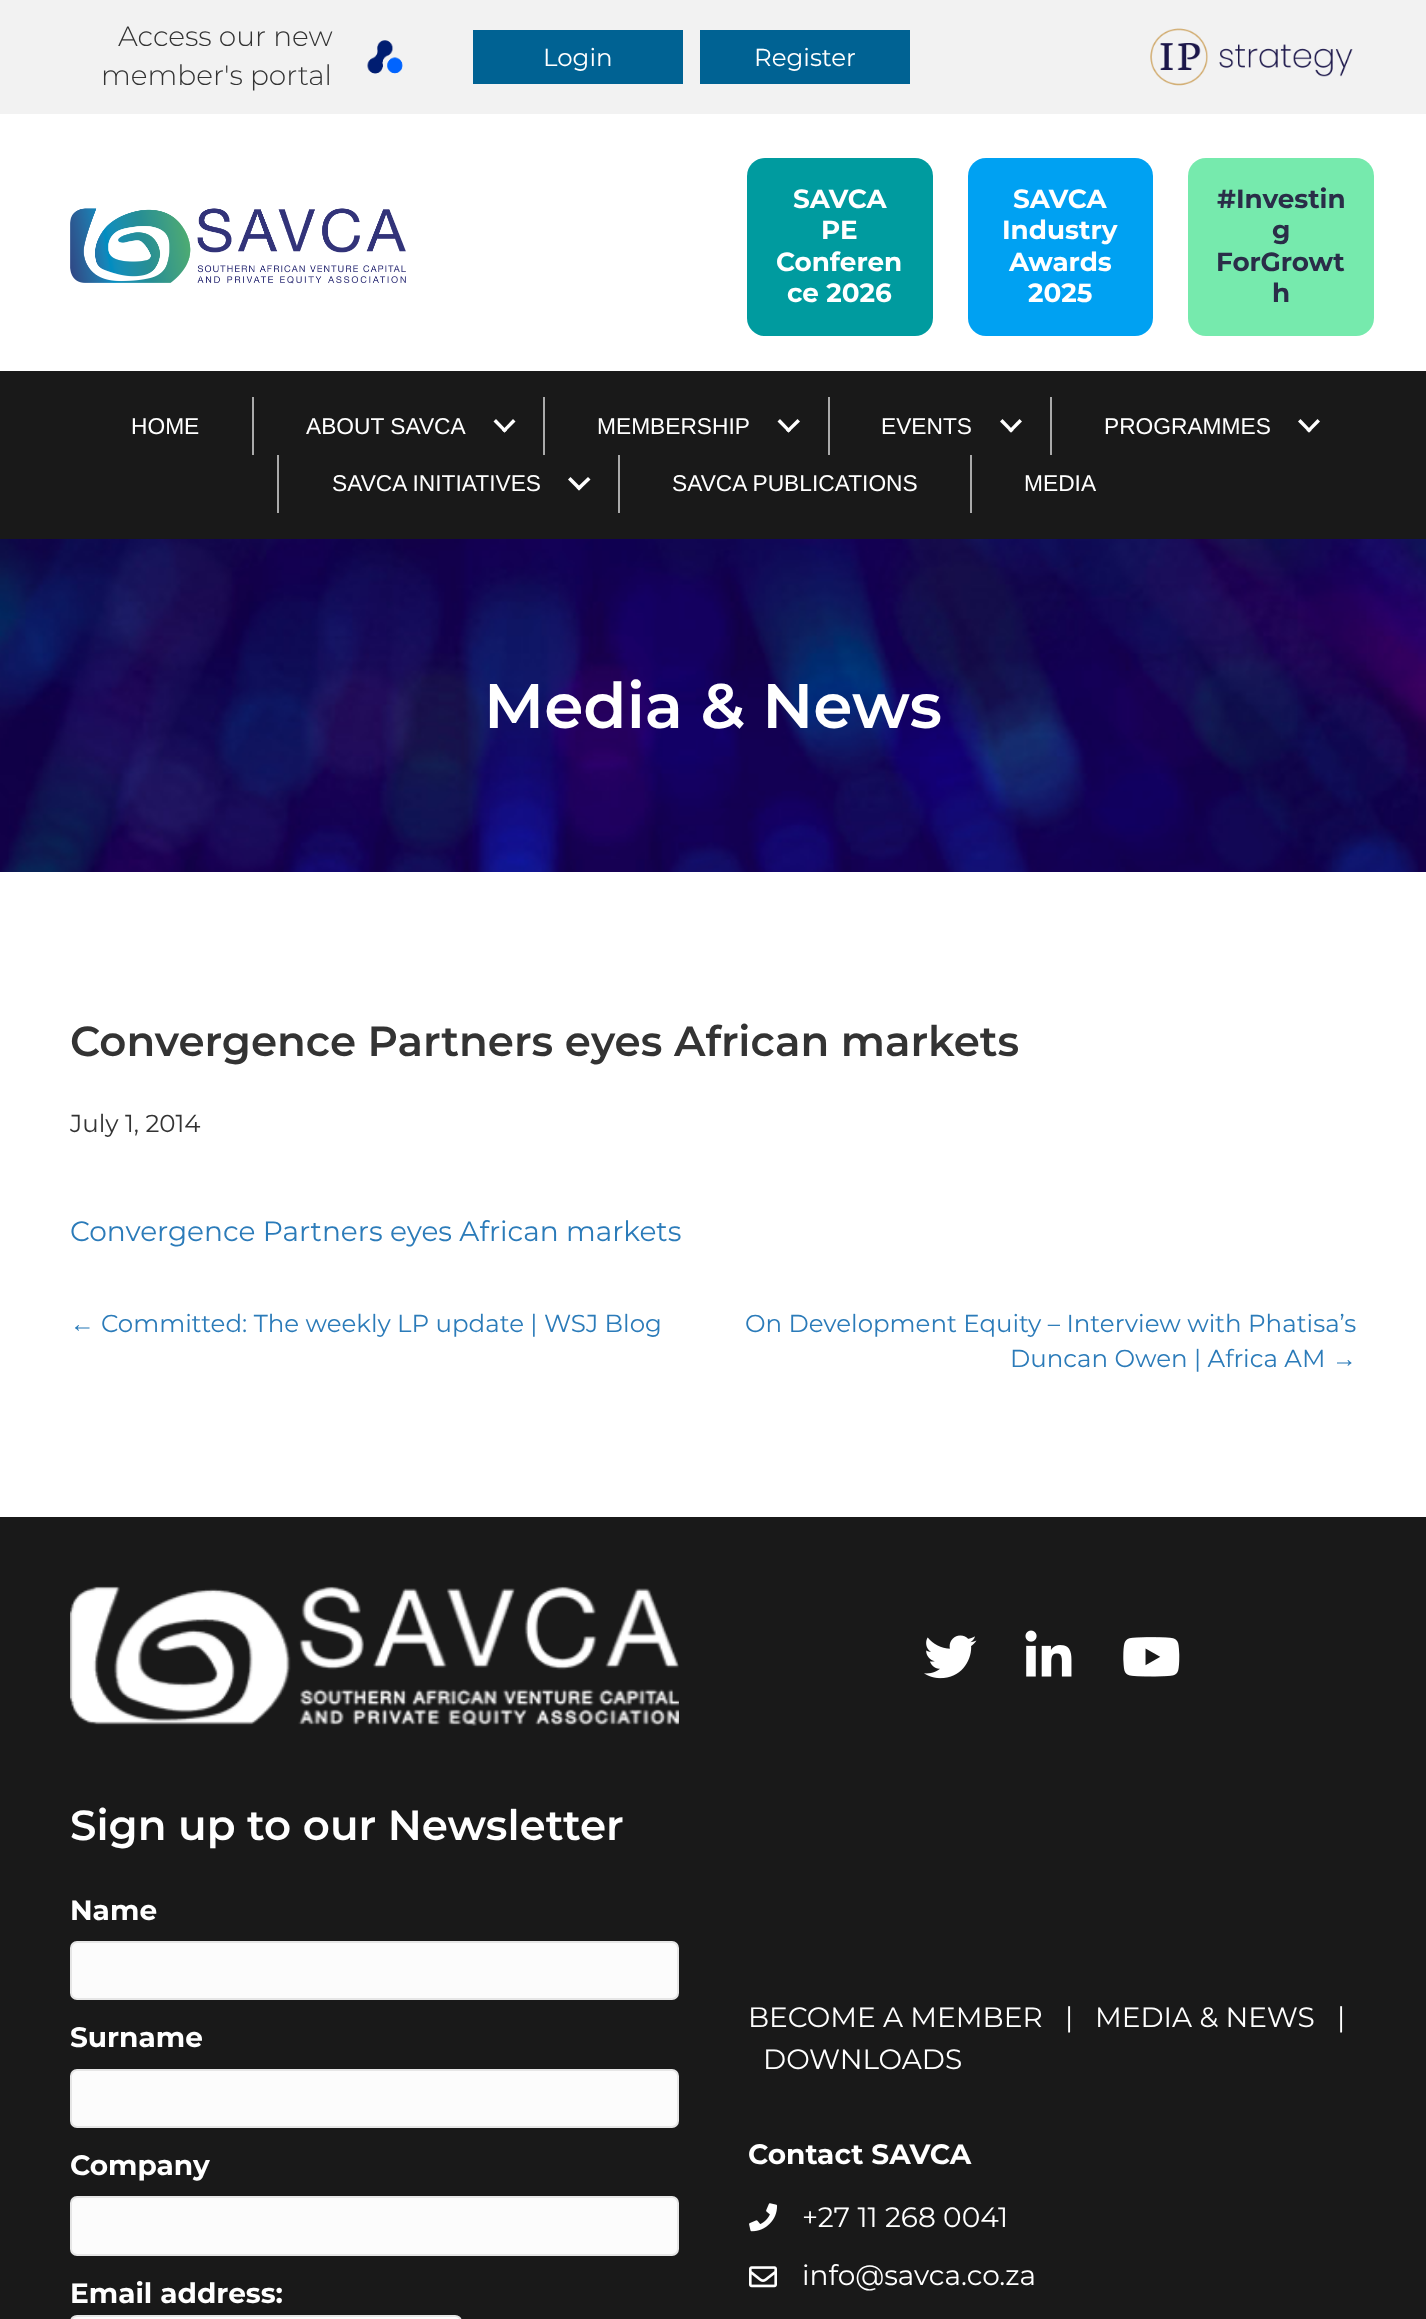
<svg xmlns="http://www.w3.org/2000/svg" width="1426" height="2319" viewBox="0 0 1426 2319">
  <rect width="100%" height="100%" fill="#f2f2f2"/>
  <image x="367" y="40" width="36" height="34" href="img/1.png"/>
  <path d="M473 30h210v54H473z" fill="#006293"/>
  <path d="M700 30h210v54H700z" fill="#006293"/>
  <image x="1150" y="28" width="203" height="58" href="img/2.png"/>
  <path d="M0 114h1426v257H0z" fill="#fff"/>
  <image x="70" y="208" width="336" height="76" href="img/3.png"/>
  <rect x="747" y="158" width="186" height="178" rx="18" fill="#009b9f"/>
  <rect x="968" y="158" width="185" height="178" rx="18" fill="#00a1f2"/>
  <rect x="1188" y="158" width="186" height="178" rx="18" fill="#76eaad"/>
  <path d="M0 371h1426v168H0z" fill="#191919"/>
  <path d="M252 397h2v58H252z" fill="#aaa"/>
  <path d="M513 419L515.5 421.5L504.5 432.5L502 430.5Z" fill="#fff"/>
  <path d="M496 419L507 430.5L504.5 432.5L493.5 421.5Z" fill="#fff"/>
  <path d="M543 397h2v58H543z" fill="#aaa"/>
  <path d="M797.5 419L800 421.5L788.5 432.5L786 430.5Z" fill="#fff"/>
  <path d="M780 419L791 430.5L788.5 432.5L777.5 421.5Z" fill="#fff"/>
  <path d="M828 397h2v58H828z" fill="#aaa"/>
  <path d="M1019.5 419L1022 421.5L1011 432.5L1008.5 430.5Z" fill="#fff"/>
  <path d="M1002.5 419L1013.5 430.5L1011 432.5L1000 421.5Z" fill="#fff"/>
  <path d="M1050 397h2v58H1050z" fill="#aaa"/>
  <path d="M1317.5 419L1320 421.5L1309 432.5L1306.5 430.5Z" fill="#fff"/>
  <path d="M1300.5 419L1311.5 430.5L1309 432.5L1298 421.5Z" fill="#fff"/>
  <path d="M277 455h2v58H277z" fill="#aaa"/>
  <path d="M588 477L590.5 479.5L579 490.5L576.5 488Z" fill="#fff"/>
  <path d="M570.5 477L581.5 488L579 490.5L568 479.5Z" fill="#fff"/>
  <path d="M618 455h2v58H618z" fill="#aaa"/>
  <path d="M970 455h2v58H970z" fill="#aaa"/>
  <path d="M0 872h1426v645H0z" fill="#fff"/>
  <image x="0" y="539" width="1426" height="333" href="img/4.png"/>
  <path d="M0 1517h1426v802H0z" fill="#191919"/>
  <image x="70" y="1586" width="609" height="140" href="img/5.png"/>
  <image x="924" y="1635" width="53" height="44" href="img/6.png"/>
  <image x="1025" y="1630" width="47" height="47" href="img/7.png"/>
  <image x="1123" y="1637" width="57" height="40" href="img/8.png"/>
  <rect x="71" y="1942" width="607" height="57" rx="6" fill="#fcfcfc" stroke="#e6e6e6" stroke-width="2"/>
  <rect x="71" y="2070" width="607" height="57" rx="6" fill="#fcfcfc" stroke="#e6e6e6" stroke-width="2"/>
  <rect x="71" y="2197" width="607" height="58" rx="6" fill="#fcfcfc" stroke="#e6e6e6" stroke-width="2"/>
  <rect x="71" y="2316" width="390" height="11" rx="6" fill="#fcfcfc" stroke="#e6e6e6" stroke-width="2"/>
  <image x="749" y="2203" width="29" height="29" href="img/9.png"/>
  <image x="749" y="2266" width="28" height="22" href="img/10.png"/>
  <g font-family="Montserrat" font-size="28" font-weight="300" fill="#333">
    <text x="118" y="46">Access our new</text>
    <text x="101" y="85">member's portal</text>
  </g>
  <g font-family="Montserrat" font-size="24.5" fill="#fff">
    <text x="543" y="66">Login</text>
    <text x="754" y="66">Register</text>
  </g>
  <g font-family="Montserrat" font-size="26.25" font-weight="bold" fill="#fff">
    <text x="793" y="208">SAVCA</text>
    <text x="821" y="239">PE</text>
    <text x="776" y="271">Conferen</text>
    <text x="787" y="302">ce 2026</text>
    <text x="1013" y="208">SAVCA</text>
    <text x="1002" y="239">Industry</text>
    <text x="1009" y="271">Awards</text>
    <text x="1028" y="302">2025</text>
  </g>
  <g font-family="Montserrat" font-size="26.25" font-weight="bold" fill="#2a2d48">
    <text x="1217" y="208">#Investin</text>
    <text x="1272" y="239">g</text>
    <text x="1216" y="271">ForGrowt</text>
    <text x="1272" y="302">h</text>
  </g>
  <g font-family="Liberation Sans" font-size="22.75" fill="#fff">
    <text x="131" y="434">HOME</text>
    <text x="306" y="434">ABOUT SAVCA</text>
    <text x="597" y="434">MEMBERSHIP</text>
    <text x="881" y="434">EVENTS</text>
    <text x="1104" y="434">PROGRAMMES</text>
    <text x="332" y="491">SAVCA INITIATIVES</text>
    <text x="672" y="491">SAVCA PUBLICATIONS</text>
    <text x="1024" y="491">MEDIA</text>
  </g>
  <text x="484" y="728" font-family="Montserrat" font-size="63" font-weight="600" fill="#fff">Media &amp; News</text>
  <text x="70" y="1056" font-family="Montserrat" font-size="42" font-weight="600" fill="#333">Convergence Partners eyes African markets</text>
  <text x="70" y="1132" font-family="Montserrat" font-size="24.5" fill="#333">July 1, 2014</text>
  <text x="70" y="1241" font-family="Montserrat" font-size="28" fill="#2b7bb9">Convergence Partners eyes African markets</text>
  <text x="70" y="1332" font-family="Liberation Sans" font-size="24.5" fill="#2b7bb9">←</text>
  <g font-family="Montserrat" font-size="24.5" fill="#2b7bb9">
    <text x="101" y="1332">Committed: The weekly LP update | WSJ Blog</text>
    <text x="745" y="1332">On Development Equity – Interview with Phatisa’s</text>
    <text x="1010" y="1367">Duncan Owen | Africa AM</text>
  </g>
  <text x="1332" y="1367" font-family="Liberation Sans" font-size="24.5" fill="#2b7bb9">→</text>
  <text x="70" y="1840" font-family="Montserrat" font-size="42" font-weight="600" fill="#fff">Sign up to our Newsletter</text>
  <g font-family="Montserrat" font-size="28" font-weight="bold" fill="#fff">
    <text x="70" y="1920">Name</text>
    <text x="70" y="2047">Surname</text>
    <text x="70" y="2175">Company</text>
    <text x="70" y="2303">Email address:</text>
  </g>
  <g font-family="Montserrat" font-size="28" fill="#fff">
    <text x="748" y="2027">BECOME A MEMBER</text>
    <text x="1065" y="2027">|</text>
    <text x="1095" y="2027">MEDIA &amp; NEWS</text>
    <text x="1337" y="2027">|</text>
    <text x="763" y="2069">DOWNLOADS</text>
  </g>
  <text x="748" y="2164" font-family="Montserrat" font-size="28" font-weight="bold" fill="#fff">Contact SAVCA</text>
  <g font-family="Montserrat" font-size="28" fill="#fff">
    <text x="802" y="2227">+27 11 268 0041</text>
    <text x="802" y="2285">info@savca.co.za</text>
  </g>
</svg>
